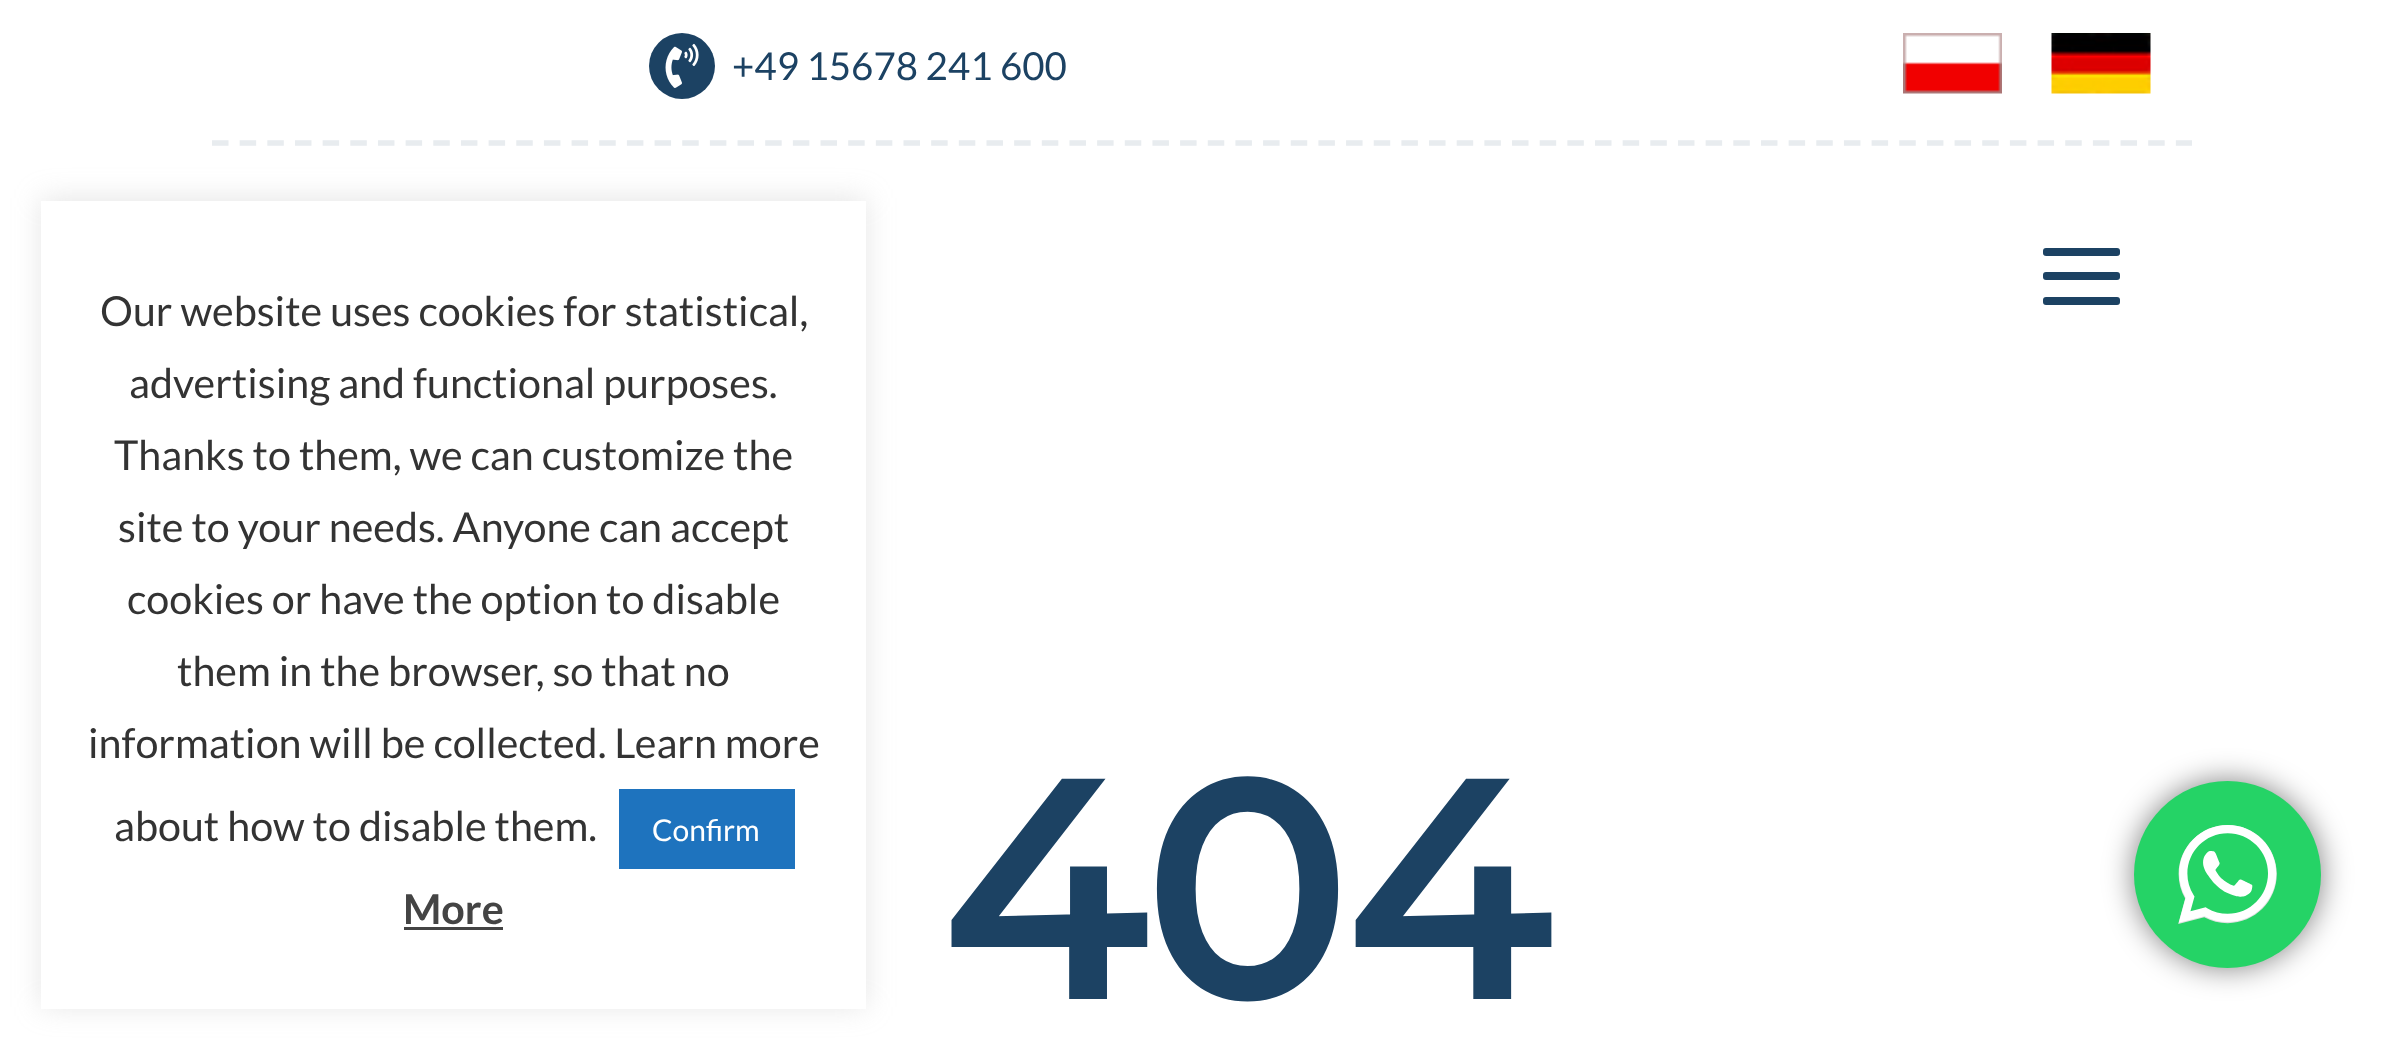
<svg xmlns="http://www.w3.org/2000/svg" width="2402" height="1049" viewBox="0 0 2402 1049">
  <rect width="100%" height="100%" fill="#fff"/>
  <circle cx="682" cy="66" r="33" fill="#1c4263"/>
  <image x="665" y="43" width="34" height="45" href="img/1.png"/>
  <image x="1903" y="33" width="99" height="61" href="img/2.png"/>
  <image x="2051" y="33" width="100" height="61" href="img/3.png"/>
  <path d="M212 143H2192" fill="none" stroke="#e8ecef" stroke-width="5.5" stroke-dasharray="16.5 11.16"/>
  <rect x="2043" y="248" width="77" height="8" rx="3" fill="#1c4263"/>
  <rect x="2043" y="272" width="77" height="8" rx="3" fill="#1c4263"/>
  <rect x="2043" y="297" width="77" height="8" rx="3" fill="#1c4263"/>
  <path d="M41 198h825v809H41z" fill="#acabab4d" filter="blur(14px)"/>
  <path d="M41 201h825v808H41z" fill="#fff"/>
  <path d="M619 789h176v80H619z" fill="#1e73be"/>
  <path d="M404 927h99v3H404z" fill="#444"/>
  <rect x="2134" y="781" width="187" height="187" rx="93.5" fill="#00000080" filter="blur(15px)"/>
  <circle cx="2227.5" cy="874.5" r="93.5" fill="#25d366"/>
  <image x="2178" y="825" width="99" height="99" href="img/4.png"/>
  <text x="732" y="80" font-family="Lato" font-size="38.5" fill="#1c4263">+49 15678 241 600</text>
  <g font-family="Lato" font-size="41.25" fill="#333">
    <text x="100" y="326">Our website uses cookies for statistical,</text>
    <text x="129" y="398">advertising and functional purposes.</text>
    <text x="114" y="470">Thanks to them, we can customize the</text>
    <text x="118" y="542">site to your needs. Anyone can accept</text>
    <text x="127" y="614">cookies or have the option to disable</text>
    <text x="177" y="686">them in the browser, so that no</text>
    <text x="88" y="758">information will be collected. Learn more</text>
    <text x="114" y="841">about how to disable them.</text>
  </g>
  <text x="652" y="841" font-family="Lato" font-size="30" fill="#fff">Confirm</text>
  <text x="403" y="924" font-family="Lato" font-size="41.25" font-weight="bold" fill="#444">More</text>
  <text x="940" y="999" font-family="Montserrat" font-size="302.5" font-weight="bold" fill="#1c4263">404</text>
</svg>
